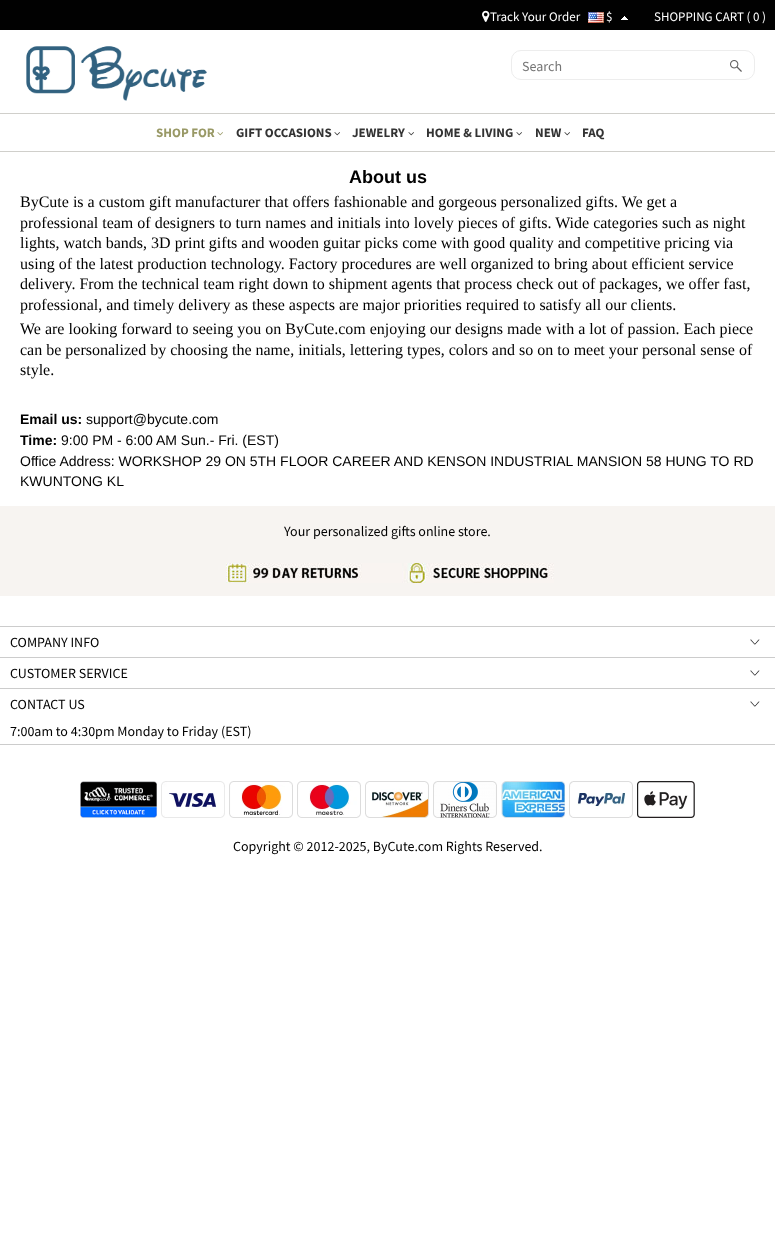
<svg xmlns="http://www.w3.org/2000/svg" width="775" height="1246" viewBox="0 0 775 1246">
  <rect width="100%" height="100%" fill="#fff"/>
  <path d="M0 0h775v30H0z" fill="#010101"/>
  <image x="482" y="10" width="8" height="12" href="img/1.png"/>
  <image x="588" y="12" width="16" height="11" href="img/2.png"/>
  <image x="621" y="16" width="7" height="4" href="img/3.png"/>
  <image x="26" y="46" width="181" height="55" href="img/4.png"/>
  <rect x="511.5" y="50.5" width="243" height="29" rx="9.5" fill="none" stroke="#ededed"/>
  <image x="730" y="60" width="12" height="12" href="img/5.png"/>
  <path d="M0 113h775v1H0z" fill="#d0cfcb"/>
  <path d="M0 151h775v1H0z" fill="#d0cfcb"/>
  <image x="217" y="132" width="6" height="4" href="img/6.png"/>
  <image x="334" y="132" width="6" height="4" href="img/7.png"/>
  <image x="408" y="132" width="6" height="4" href="img/7.png"/>
  <image x="516" y="132" width="6" height="4" href="img/7.png"/>
  <image x="564" y="132" width="6" height="4" href="img/7.png"/>
  <path d="M0 506h775v90H0z" fill="#f7f4f1"/>
  <image x="226" y="563" width="328" height="20" href="img/8.png"/>
  <path d="M0 626h775v1H0z" fill="#ccc"/>
  <path d="M0 657h775v1H0z" fill="#ccc"/>
  <image x="750" y="639" width="10" height="6" href="img/9.png"/>
  <path d="M0 688h775v1H0z" fill="#ccc"/>
  <image x="750" y="670" width="10" height="6" href="img/9.png"/>
  <path d="M0 744h775v1H0z" fill="#ccc"/>
  <image x="750" y="701" width="10" height="6" href="img/9.png"/>
  <image x="80" y="781" width="77" height="37" href="img/10.png"/>
  <image x="161" y="781" width="64" height="37" href="img/11.png"/>
  <image x="229" y="781" width="64" height="37" href="img/12.png"/>
  <image x="297" y="781" width="64" height="37" href="img/13.png"/>
  <image x="365" y="781" width="64" height="37" href="img/14.png"/>
  <image x="433" y="781" width="64" height="37" href="img/15.png"/>
  <image x="501" y="781" width="64" height="37" href="img/16.png"/>
  <image x="569" y="781" width="64" height="37" href="img/17.png"/>
  <image x="637" y="781" width="58" height="37" href="img/18.png"/>
  <g font-family="Source Sans Pro" font-size="13" fill="#fff">
    <text x="490" y="21">Track Your Order</text>
    <text x="606" y="21">$</text>
    <text x="654" y="21">SHOPPING CART ( 0 )</text>
  </g>
  <text x="522" y="71" font-family="Source Sans Pro" font-size="14" fill="#757575">Search</text>
  <text x="156" y="137" font-family="Source Sans Pro" font-size="13" font-weight="bold" fill="#996">SHOP FOR</text>
  <g font-family="Source Sans Pro" font-size="13" font-weight="bold" fill="#333">
    <text x="236" y="137">GIFT OCCASIONS</text>
    <text x="352" y="137">JEWELRY</text>
    <text x="426" y="137">HOME &amp; LIVING</text>
    <text x="535" y="137">NEW</text>
    <text x="582" y="137">FAQ</text>
  </g>
  <text x="349" y="183" font-family="Liberation Sans" font-size="18" font-weight="bold" fill="#010101">About us</text>
  <g font-family="Liberation Serif" font-size="16" fill="#010101">
    <text x="20" y="207">ByCute is a custom gift manufacturer that offers fashionable and gorgeous personalized gifts. We get a</text>
    <text x="20" y="228">professional team of designers to turn names and initials into lovely pieces of gifts. Wide categories such as night</text>
    <text x="20" y="248">lights, watch bands, 3D print gifts and wooden guitar picks come with good quality and competitive pricing via</text>
    <text x="20" y="269">using of the latest production technology. Factory procedures are well organized to bring about efficient service</text>
    <text x="20" y="289">delivery. From the technical team right down to shipment agents that process check out of packages, we offer fast,</text>
    <text x="20" y="310">professional, and timely delivery as these aspects are major priorities required to satisfy all our clients.</text>
    <text x="20" y="334">We are looking forward to seeing you on ByCute.com enjoying our designs made with a lot of passion. Each piece</text>
    <text x="20" y="355">can be personalized by choosing the name, initials, lettering types, colors and so on to meet your personal sense of</text>
    <text x="20" y="375">style.</text>
  </g>
  <text x="20" y="424" font-family="Liberation Sans" font-size="14" font-weight="bold" fill="#010101">Email us:</text>
  <text x="86" y="424" font-family="Liberation Sans" font-size="14" fill="#010101">support@bycute.com</text>
  <text x="20" y="445" font-family="Liberation Sans" font-size="14" font-weight="bold" fill="#010101">Time:</text>
  <g font-family="Liberation Sans" font-size="14" fill="#010101">
    <text x="61" y="445">9:00 PM - 6:00 AM Sun.- Fri. (EST)</text>
    <text x="20" y="466">Office Address: WORKSHOP 29 ON 5TH FLOOR CAREER AND KENSON INDUSTRIAL MANSION 58 HUNG TO RD</text>
    <text x="20" y="486">KWUNTONG KL</text>
  </g>
  <g font-family="Source Sans Pro" font-size="14" fill="#010101">
    <text x="284" y="536">Your personalized gifts online store.</text>
    <text x="10" y="647">COMPANY INFO</text>
    <text x="10" y="678">CUSTOMER SERVICE</text>
    <text x="10" y="709">CONTACT US</text>
    <text x="10" y="736">7:00am to 4:30pm Monday to Friday (EST)</text>
    <text x="233" y="851">Copyright © 2012-2025, ByCute.com Rights Reserved.</text>
  </g>
</svg>
